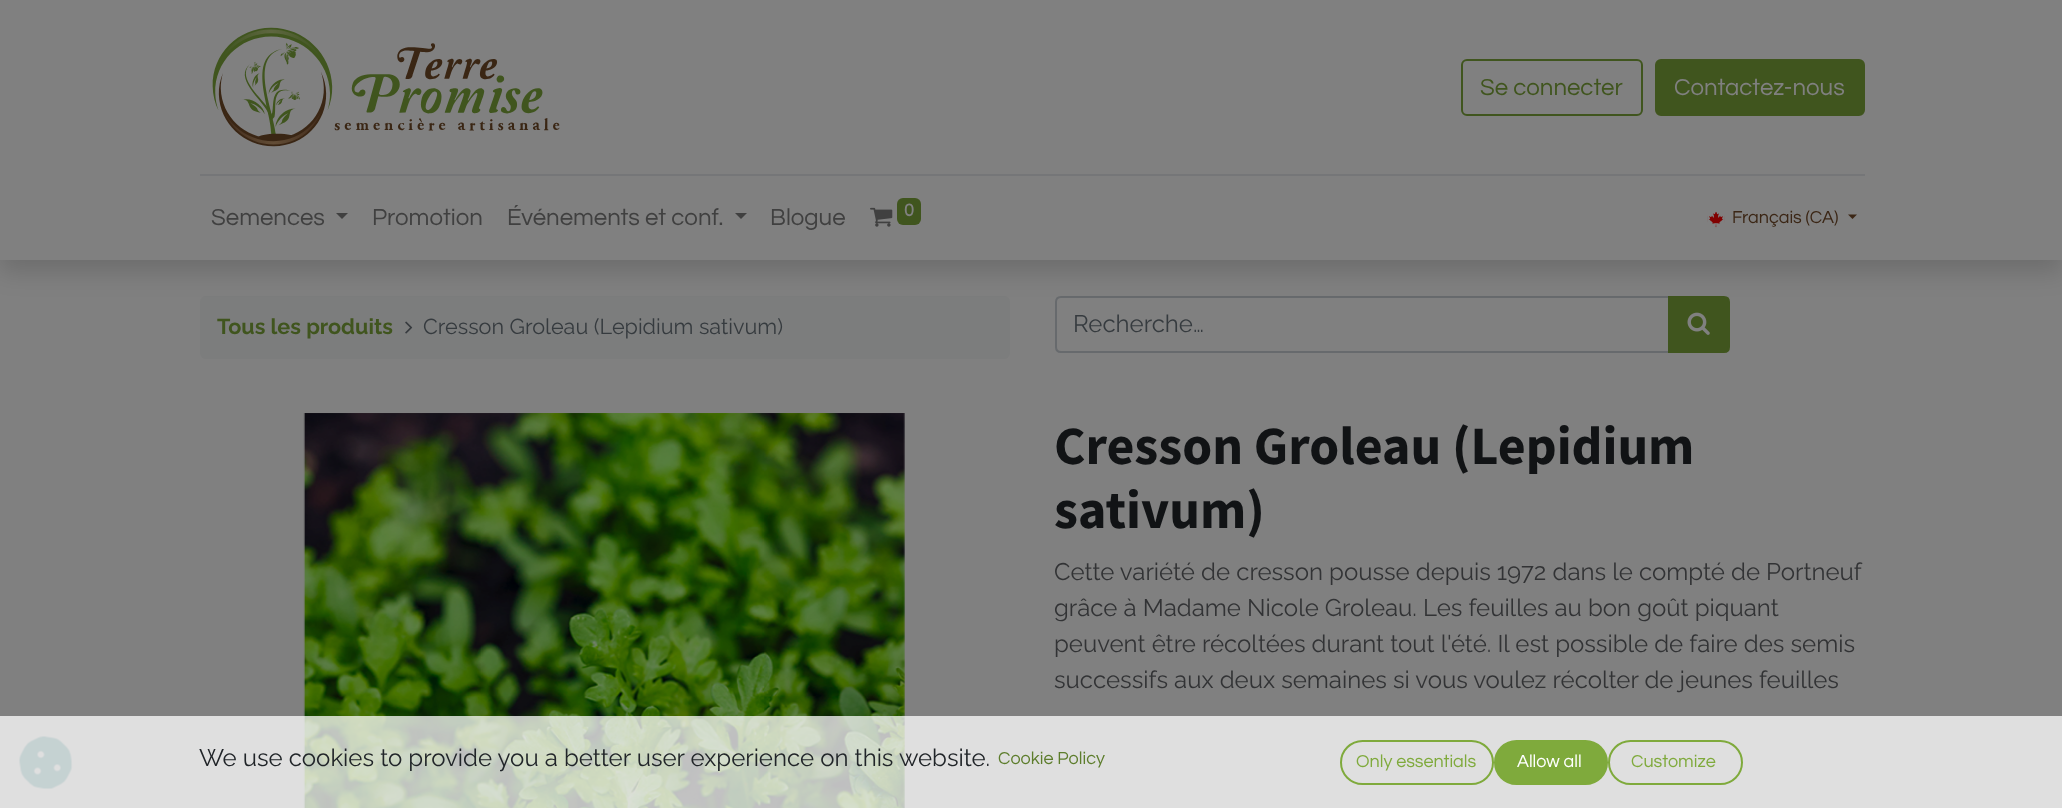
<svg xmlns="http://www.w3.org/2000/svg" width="2062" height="808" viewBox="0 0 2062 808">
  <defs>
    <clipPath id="clip1"><path d="M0 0H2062V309H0ZM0 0H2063V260H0Z" clip-rule="evenodd"/></clipPath>
  </defs>
  <rect width="100%" height="100%" fill="#808080"/>
  <rect x="200" y="296" width="810" height="63" rx="6" fill="#7c7d7d"/>
  <path d="M1061 297H1669V352H1061C1058 352 1056 350 1056 347V302C1056 299 1058 297 1061 297Z" fill="none" stroke="#676a6d" stroke-width="2"/>
  <path d="M1669 297H1724C1727 297 1729 299 1729 302V347C1729 350 1727 352 1724 352H1669Z" fill="#40551e" stroke="#40551e" stroke-width="2"/>
  <g clip-path="url(#clip1)">
    <path d="M0 12h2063v260H0z" fill="#00000026" filter="blur(12px)"/>
  </g>
  <path d="M0 259h2062v1H0z" fill="#808080bf"/>
  <image x="212" y="27" width="348" height="120" href="img/1.png"/>
  <rect x="1462" y="60" width="180" height="55" rx="5" fill="none" stroke="#40551e" stroke-width="2"/>
  <rect x="1656" y="60" width="208" height="55" rx="5" fill="#40551e" stroke="#40551e" stroke-width="2"/>
  <path d="M200 174h1665v2H200z" fill="#757678"/>
  <path d="M336 213H348L342 219Z" fill="#404040"/>
  <path d="M735 213H747L741 219Z" fill="#404040"/>
  <image x="870" y="207" width="23" height="20" href="img/2.png"/>
  <rect x="897" y="198" width="24" height="27" rx="6" fill="#40551e"/>
  <image x="1707" y="211" width="18" height="17" href="img/3.png"/>
  <path d="M1848 214.5H1857L1852.5 219Z" fill="#3b2615"/>
  <image x="405" y="321" width="8" height="13" href="img/4.png"/>
  <image x="1687" y="312" width="23" height="23" href="img/5.png"/>
  <image x="303" y="413" width="602" height="395" href="img/6.png"/>
  <image x="19" y="736" width="54" height="54" href="img/7.png"/>
  <path d="M0 716h2062v92H0z" fill="#ffffffbf"/>
  <rect x="1341" y="741" width="152" height="43" rx="21.5" fill="none" stroke="#7faa3c" stroke-width="2"/>
  <rect x="1495" y="741" width="112" height="43" rx="21.5" fill="#7faa3c" stroke="#7faa3c" stroke-width="2"/>
  <rect x="1609" y="741" width="133" height="43" rx="21.5" fill="none" stroke="#7faa3c" stroke-width="2"/>
  <text x="1480" y="95" font-family="Questrial" font-size="24" fill="#40551e">Se connecter</text>
  <text x="1674" y="95" font-family="Questrial" font-size="24" fill="#808080">Contactez-nous</text>
  <g font-family="Questrial" font-size="24" fill="#404040">
    <text x="211" y="225">Semences</text>
    <text x="372" y="225">Promotion</text>
    <text x="507" y="225">Événements et conf.</text>
    <text x="770" y="225">Blogue</text>
  </g>
  <text x="904" y="216" font-family="Questrial" font-size="18" font-weight="bold" fill="#808080">0</text>
  <text x="1732" y="223" font-family="Questrial" font-size="18" fill="#3b2615">Français (CA)</text>
  <text x="217" y="334" font-family="Raleway" font-size="21.6" font-weight="bold" fill="#40551e">Tous les produits</text>
  <text x="423" y="334" font-family="Raleway" font-size="21.6" fill="#363b3f">Cresson Groleau (Lepidium sativum)</text>
  <text x="1073" y="332" font-family="Raleway" font-size="24" fill="#363b3f">Recherche…</text>
  <g font-family="Source Sans Pro" font-size="54" font-weight="bold" fill="#111315">
    <text x="1054" y="464">Cresson Groleau (Lepidium</text>
    <text x="1054" y="528">sativum)</text>
  </g>
  <g font-family="Raleway" font-size="24" fill="#323335">
    <text x="1054" y="580">Cette variété de cresson pousse depuis 1972 dans le compté de Portneuf</text>
    <text x="1054" y="616">grâce à Madame Nicole Groleau. Les feuilles au bon goût piquant</text>
    <text x="1054" y="652">peuvent être récoltées durant tout l'été. Il est possible de faire des semis</text>
    <text x="1054" y="688">successifs aux deux semaines si vous voulez récolter de jeunes feuilles</text>
  </g>
  <text x="199" y="766" font-family="Raleway" font-size="24" fill="#212529">We use cookies to provide you a better user experience on this website.</text>
  <text x="998" y="764" font-family="Questrial" font-size="18" fill="#5d7d2c">Cookie Policy</text>
  <text x="1356" y="767" font-family="Questrial" font-size="18" fill="#7faa3c">Only essentials</text>
  <text x="1517" y="767" font-family="Questrial" font-size="18" fill="#fff">Allow all</text>
  <text x="1631" y="767" font-family="Questrial" font-size="18" fill="#7faa3c">Customize</text>
</svg>
